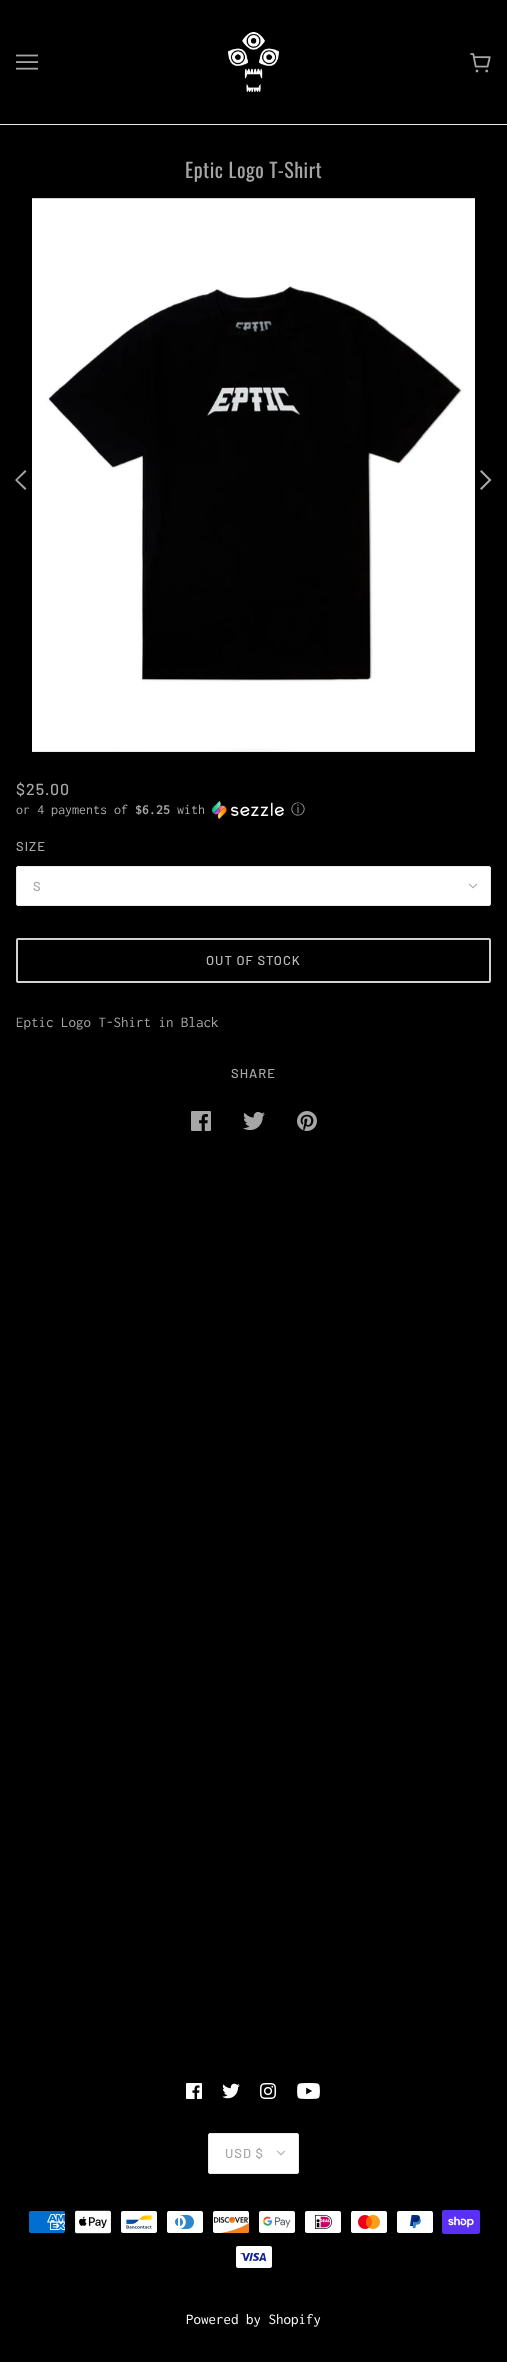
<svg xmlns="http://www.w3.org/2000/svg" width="507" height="2362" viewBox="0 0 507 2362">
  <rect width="100%" height="100%" fill="#000"/>
  <path d="M0 124h507v1H0z" fill="#eaeaea"/>
  <image x="16" y="54" width="22" height="16" href="img/1.png"/>
  <image x="228" y="32" width="51" height="60" href="img/2.png"/>
  <image x="470" y="53" width="21" height="20" href="img/3.png"/>
  <image x="32" y="198" width="443" height="554" href="img/4.png"/>
  <path d="M17.5 480L26.5 471.5L25 470L15 480L25 490L26.5 488.5Z" fill="#a6a6a6"/>
  <path d="M488.5 480L480 488.5L481.5 490L491.5 480L481.5 470L480 471.5Z" fill="#a6a6a6"/>
  <image x="212" y="801" width="72" height="18" href="img/5.png"/>
  <rect x="16.5" y="866.5" width="474" height="39" rx="1.5" fill="#fff" stroke="#eaeaea"/>
  <image x="468" y="883" width="10" height="6" href="img/6.png"/>
  <rect x="17" y="939" width="473" height="43" rx="1" fill="none" stroke="#d2d2d2" stroke-width="2"/>
  <image x="191" y="1111" width="20" height="20" href="img/7.png"/>
  <image x="243" y="1111" width="22" height="20" href="img/8.png"/>
  <image x="297" y="1111" width="20" height="20" href="img/9.png"/>
  <image x="186" y="2083" width="16" height="16" href="img/10.png"/>
  <image x="222" y="2083" width="18" height="16" href="img/11.png"/>
  <image x="260" y="2083" width="16" height="16" href="img/12.png"/>
  <image x="297" y="2083" width="23" height="16" href="img/13.png"/>
  <rect x="208.5" y="2133.5" width="90" height="40" rx="1.5" fill="#fff" stroke="#eaeaea"/>
  <image x="276" y="2150" width="10" height="6" href="img/6.png"/>
  <image x="29" y="2211" width="36" height="22" href="img/14.png"/>
  <image x="75" y="2210" width="36" height="24" href="img/15.png"/>
  <image x="121" y="2211" width="36" height="22" href="img/16.png"/>
  <image x="167" y="2211" width="36" height="22" href="img/17.png"/>
  <image x="213" y="2211" width="37" height="22" href="img/18.png"/>
  <image x="259" y="2211" width="36" height="22" href="img/19.png"/>
  <image x="305" y="2211" width="36" height="22" href="img/20.png"/>
  <image x="351" y="2211" width="36" height="22" href="img/21.png"/>
  <image x="397" y="2211" width="36" height="22" href="img/22.png"/>
  <image x="442" y="2210" width="38" height="24" href="img/23.png"/>
  <image x="236" y="2246" width="36" height="22" href="img/24.png"/>
  <text x="185" y="178" font-family="Oswald" font-size="20" letter-spacing="0.5" fill="#a6a6a6">Eptic Logo T-Shirt</text>
  <text x="16" y="795" font-family="Barlow" font-size="16" font-weight="500" letter-spacing="1" fill="#a6a6a6">$25.00</text>
  <text x="16" y="814" font-family="Inconsolata" font-size="14" fill="#a6a6a6">or 4 payments of</text>
  <text x="135" y="814" font-family="Inconsolata" font-size="14" font-weight="bold" fill="#a6a6a6">$6.25</text>
  <text x="177" y="814" font-family="Inconsolata" font-size="14" fill="#a6a6a6">with</text>
  <text x="291" y="814" font-family="WenQuanYi Zen Hei" font-size="14" font-weight="500" fill="#a6a6a6">ⓘ</text>
  <g font-family="Barlow" font-size="13" font-weight="500" letter-spacing="1" fill="#a6a6a6">
    <text x="16" y="851">SIZE</text>
    <text x="33" y="891">S</text>
  </g>
  <text x="206" y="965" font-family="Barlow" font-size="13" font-weight="500" letter-spacing="1" fill="#b9b9b9">OUT OF STOCK</text>
  <text x="16" y="1027" font-family="Inconsolata" font-size="15" fill="#a6a6a6">Eptic Logo T-Shirt in Black</text>
  <g font-family="Barlow" font-size="13" font-weight="500" letter-spacing="1" fill="#a6a6a6">
    <text x="231" y="1078">SHARE</text>
    <text x="225" y="2158">USD $</text>
  </g>
  <text x="186" y="2324" font-family="Inconsolata" font-size="15" fill="#fff">Powered by Shopify</text>
</svg>
